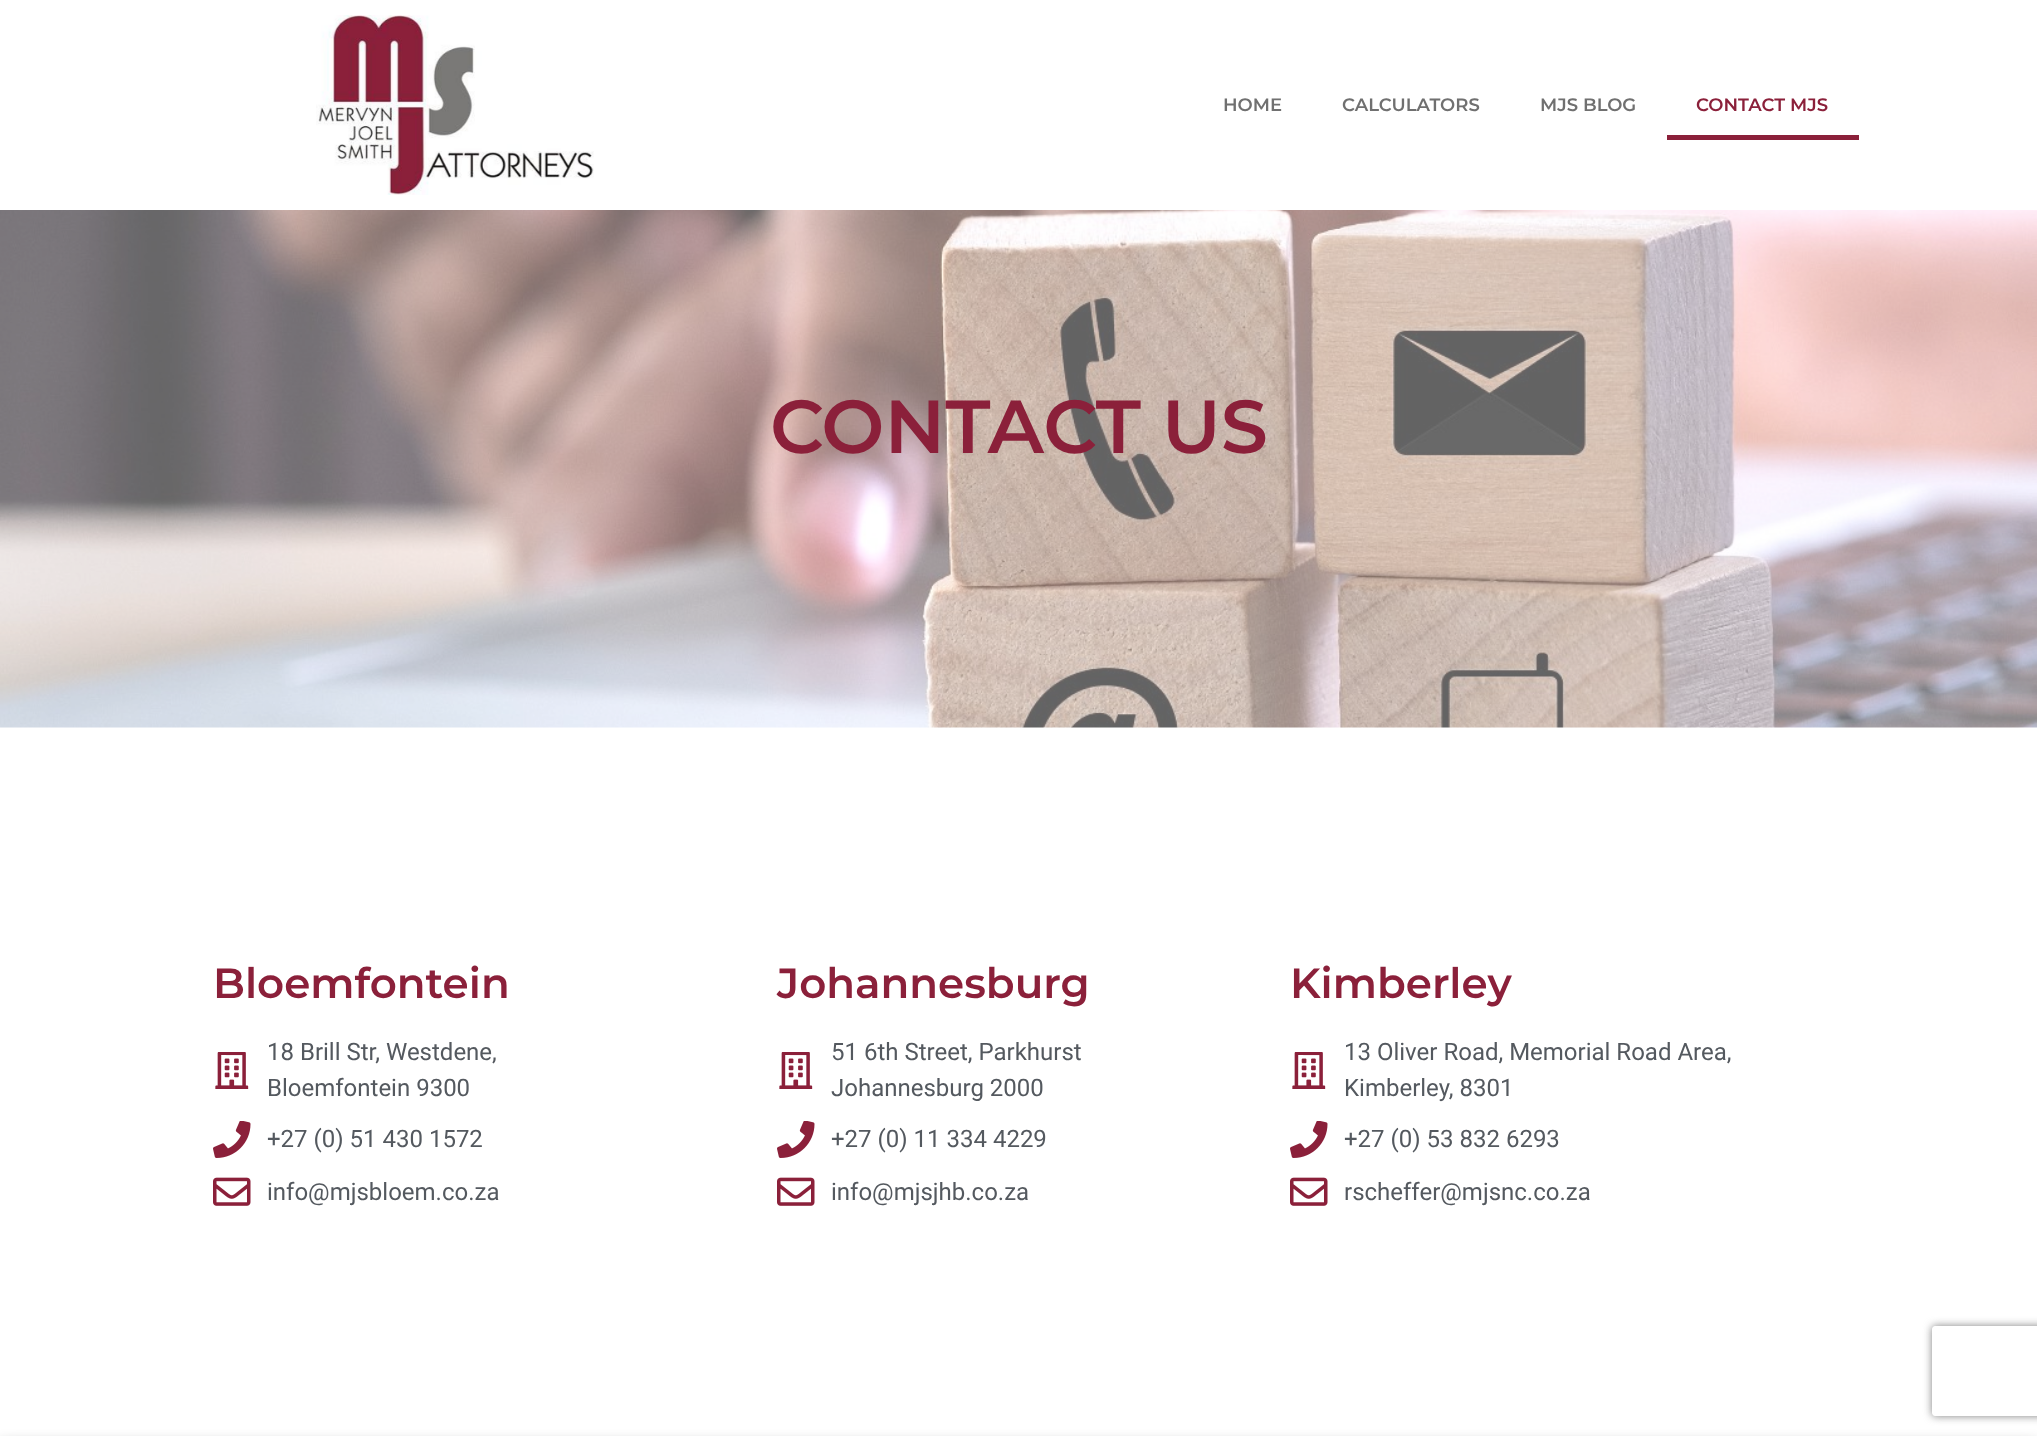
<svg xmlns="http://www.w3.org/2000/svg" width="2037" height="1436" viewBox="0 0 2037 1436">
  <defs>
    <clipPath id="clip1"><path d="M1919 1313H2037V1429H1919ZM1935 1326H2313C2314.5 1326 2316 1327.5 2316 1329V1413C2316 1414.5 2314.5 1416 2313 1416H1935C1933.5 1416 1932 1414.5 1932 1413V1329C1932 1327.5 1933.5 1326 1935 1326Z" clip-rule="evenodd"/></clipPath>
  </defs>
  <rect width="100%" height="100%" fill="#fff"/>
  <image x="316" y="15" width="278" height="180" href="img/1.png"/>
  <path d="M1667 135h192v5H1667z" fill="#8b203a"/>
  <image x="0" y="210" width="2037" height="518" href="img/2.png"/>
  <image x="215" y="1052" width="34" height="37" href="img/3.png"/>
  <image x="213" y="1121" width="38" height="37" href="img/4.png"/>
  <image x="213" y="1177" width="38" height="29" href="img/5.png"/>
  <image x="779" y="1052" width="34" height="37" href="img/3.png"/>
  <image x="777" y="1121" width="38" height="37" href="img/4.png"/>
  <image x="777" y="1177" width="38" height="29" href="img/5.png"/>
  <image x="1292" y="1052" width="34" height="37" href="img/3.png"/>
  <image x="1290" y="1121" width="38" height="37" href="img/4.png"/>
  <image x="1290" y="1177" width="38" height="29" href="img/5.png"/>
  <g clip-path="url(#clip1)">
    <rect x="1932" y="1326" width="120" height="90" rx="3" fill="#808080" filter="blur(4px)"/>
  </g>
  <path d="M0 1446h2037v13H0z" fill="#00000080" filter="blur(7.5px)"/>
  <g font-family="Montserrat" font-size="18" font-weight="600" fill="#707070">
    <text x="1223" y="111">HOME</text>
    <text x="1342" y="111">CALCULATORS</text>
    <text x="1540" y="111">MJS BLOG</text>
  </g>
  <text x="1696" y="111" font-family="Montserrat" font-size="18" font-weight="600" fill="#8b203a">CONTACT MJS</text>
  <text x="770" y="453" font-family="Montserrat" font-size="75" font-weight="600" fill="#8b203a">CONTACT US</text>
  <text x="213" y="998" font-family="Montserrat" font-size="42" font-weight="600" fill="#8b203a">Bloemfontein</text>
  <g font-family="Roboto" font-size="24" fill="#54595f">
    <text x="267" y="1060">18 Brill Str, Westdene,</text>
    <text x="267" y="1096">Bloemfontein 9300</text>
    <text x="267" y="1147">+27 (0) 51 430 1572</text>
    <text x="267" y="1200">info@mjsbloem.co.za</text>
  </g>
  <text x="777" y="998" font-family="Montserrat" font-size="42" font-weight="600" fill="#8b203a">Johannesburg</text>
  <g font-family="Roboto" font-size="24" fill="#54595f">
    <text x="831" y="1060">51 6th Street, Parkhurst</text>
    <text x="831" y="1096">Johannesburg 2000</text>
    <text x="831" y="1147">+27 (0) 11 334 4229</text>
    <text x="831" y="1200">info@mjsjhb.co.za</text>
  </g>
  <text x="1290" y="998" font-family="Montserrat" font-size="42" font-weight="600" fill="#8b203a">Kimberley</text>
  <g font-family="Roboto" font-size="24" fill="#54595f">
    <text x="1344" y="1060">13 Oliver Road, Memorial Road Area,</text>
    <text x="1344" y="1096">Kimberley, 8301</text>
    <text x="1344" y="1147">+27 (0) 53 832 6293</text>
    <text x="1344" y="1200">rscheffer@mjsnc.co.za</text>
  </g>
</svg>
